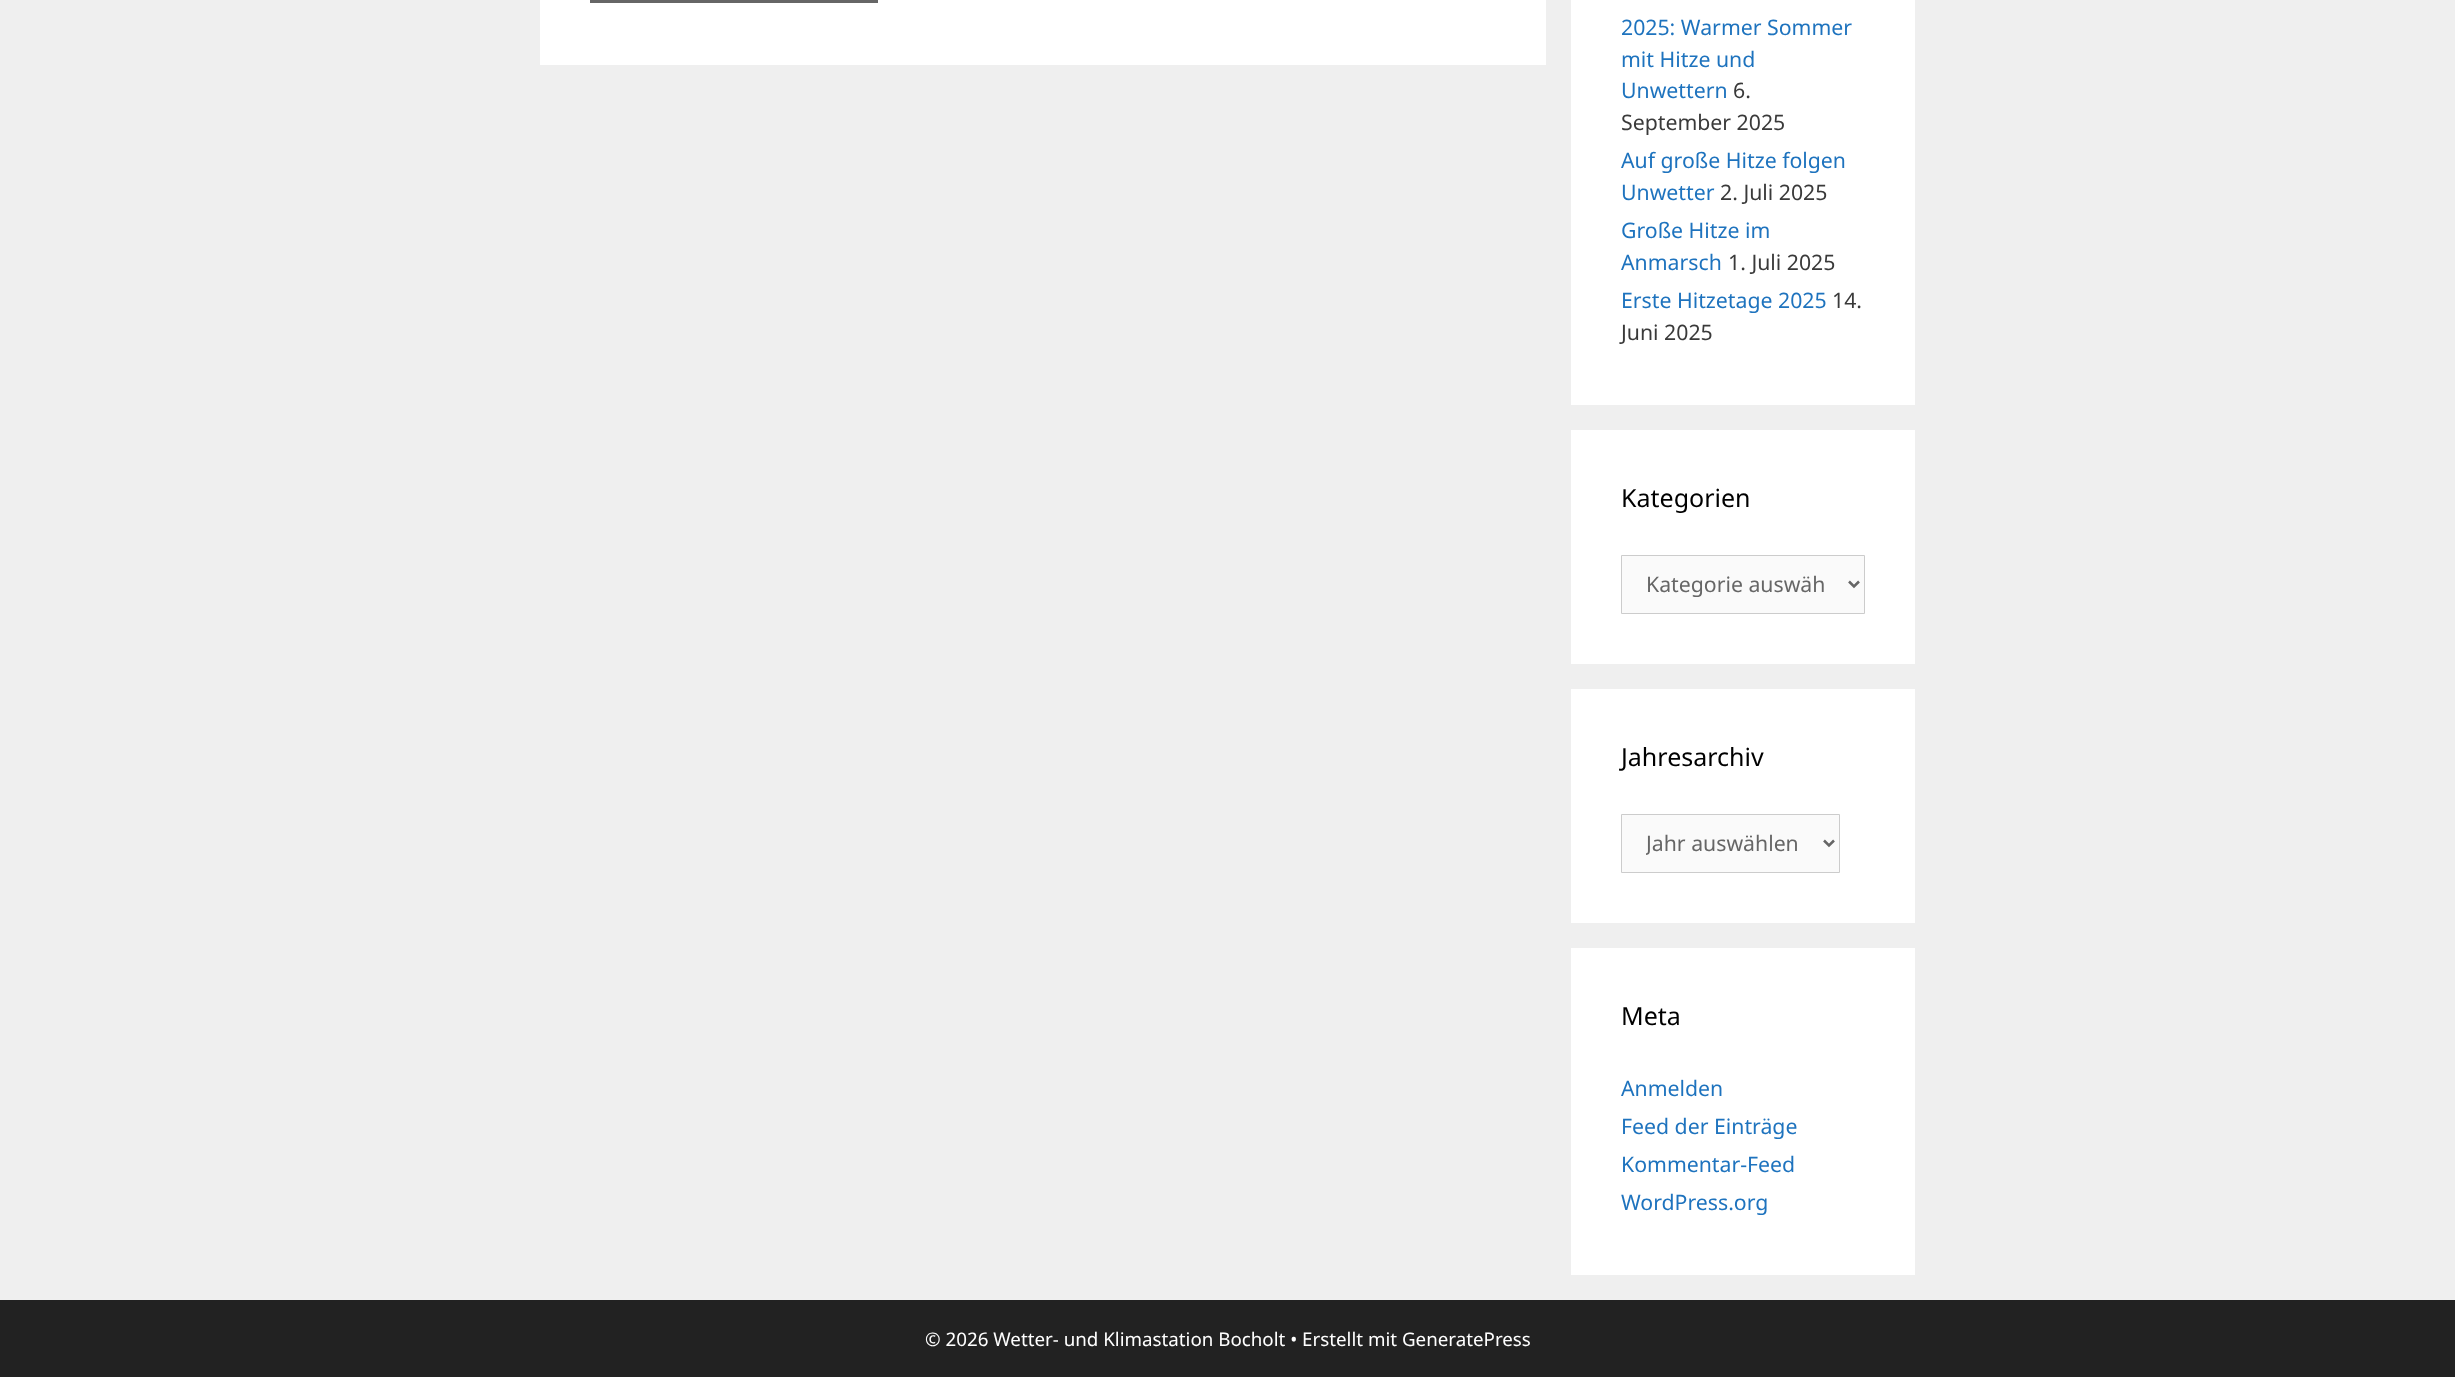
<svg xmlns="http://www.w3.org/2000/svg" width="2455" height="1377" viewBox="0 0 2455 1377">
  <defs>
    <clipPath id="clip1"><path d="M1646 828h154v31H1646z"/></clipPath>
  </defs>
  <rect width="100%" height="100%" fill="#efefef"/>
  <path d="M540 0h1006v65H540z" fill="#fff"/>
  <path d="M590 0h288v3H590z" fill="#666"/>
  <path d="M1571 0h344v405H1571z" fill="#fff"/>
  <path d="M1571 430h344v234H1571z" fill="#fff"/>
  <path d="M1621.5 555.5h243v58H1621.5z" fill="#fafafa" stroke="#ccc"/>
  <path d="M1849 581.5L1854 586.5L1859 581.5" fill="none" stroke="#666" stroke-width="2.5"/>
  <path d="M1571 689h344v234H1571z" fill="#fff"/>
  <path d="M1621.5 814.5h218v58H1621.5z" fill="#fafafa" stroke="#ccc"/>
  <path d="M1824 840.5L1829 845.5L1834 840.5" fill="none" stroke="#666" stroke-width="2.5"/>
  <path d="M1571 948h344v327H1571z" fill="#fff"/>
  <path d="M0 1300h2455v77H0z" fill="#222"/>
  <g font-family="Noto Sans" font-size="21.25" fill="#1e73be">
    <text x="1621" y="35">2025: Warmer Sommer</text>
    <text x="1621" y="67">mit Hitze und</text>
    <text x="1621" y="98">Unwettern</text>
  </g>
  <g font-family="Noto Sans" font-size="21.25" fill="#3a3a3a">
    <text x="1733" y="98">6.</text>
    <text x="1621" y="130">September 2025</text>
  </g>
  <g font-family="Noto Sans" font-size="21.25" fill="#1e73be">
    <text x="1621" y="168">Auf große Hitze folgen</text>
    <text x="1621" y="200">Unwetter</text>
  </g>
  <text x="1720" y="200" font-family="Noto Sans" font-size="21.25" fill="#3a3a3a">2. Juli 2025</text>
  <g font-family="Noto Sans" font-size="21.25" fill="#1e73be">
    <text x="1621" y="238">Große Hitze im</text>
    <text x="1621" y="270">Anmarsch</text>
  </g>
  <text x="1728" y="270" font-family="Noto Sans" font-size="21.25" fill="#3a3a3a">1. Juli 2025</text>
  <text x="1621" y="308" font-family="Noto Sans" font-size="21.25" fill="#1e73be">Erste Hitzetage 2025</text>
  <g font-family="Noto Sans" font-size="21.25" fill="#3a3a3a">
    <text x="1832" y="308">14.</text>
    <text x="1621" y="340">Juni 2025</text>
  </g>
  <text x="1621" y="507" font-family="Noto Sans" font-size="25" fill="#000">Kategorien</text>
  <text x="1646" y="592" font-family="Noto Sans" font-size="21.25" fill="#666">Kategorie auswäh</text>
  <text x="1621" y="766" font-family="Noto Sans" font-size="25" fill="#000">Jahresarchiv</text>
  <g clip-path="url(#clip1)">
    <text x="1646" y="851" font-family="Noto Sans" font-size="21.25" fill="#666">Jahr auswählen</text>
  </g>
  <text x="1621" y="1025" font-family="Noto Sans" font-size="25" fill="#000">Meta</text>
  <g font-family="Noto Sans" font-size="21.25" fill="#1e73be">
    <text x="1621" y="1096">Anmelden</text>
    <text x="1621" y="1134">Feed der Einträge</text>
    <text x="1621" y="1172">Kommentar-Feed</text>
    <text x="1621" y="1210">WordPress.org</text>
  </g>
  <text x="925" y="1346" font-family="Noto Sans" font-size="18.75" fill="#fff">© 2026 Wetter- und Klimastation Bocholt • Erstellt mit GeneratePress</text>
</svg>
